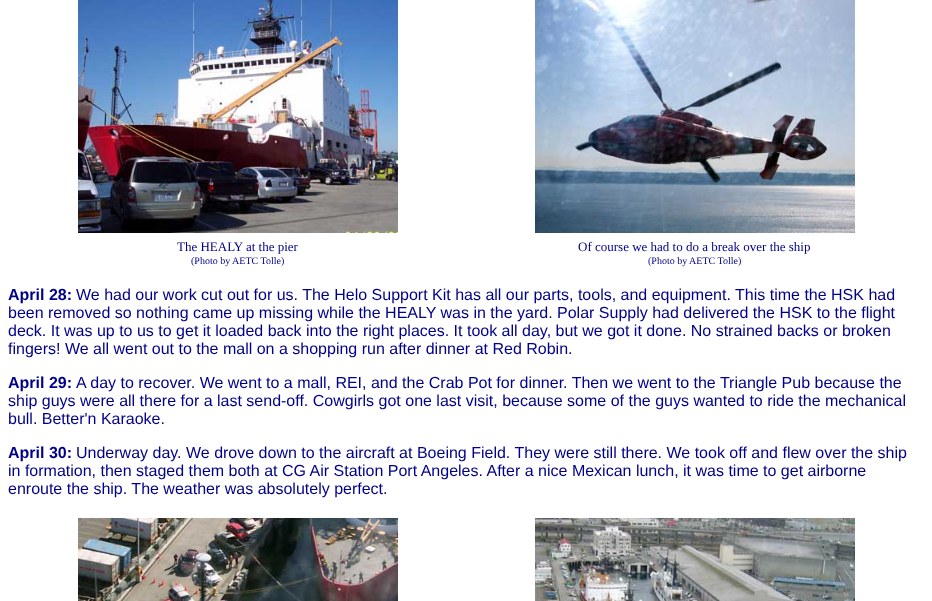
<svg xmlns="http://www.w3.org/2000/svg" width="932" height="601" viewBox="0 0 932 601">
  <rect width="100%" height="100%" fill="#fff"/>
  <image x="78" y="0" width="320" height="233" href="img/1.png"/>
  <image x="535" y="0" width="320" height="233" href="img/2.png"/>
  <image x="78" y="518" width="320" height="83" href="img/3.png"/>
  <image x="535" y="518" width="320" height="83" href="img/4.png"/>
  <text x="177" y="251" font-family="Liberation Serif" font-size="13" fill="#00008b">The HEALY at the pier</text>
  <text x="191" y="264" font-family="Liberation Serif" font-size="10" fill="#00008b">(Photo by AETC Tolle)</text>
  <text x="578" y="251" font-family="Liberation Serif" font-size="13" fill="#00008b">Of course we had to do a break over the ship</text>
  <text x="648" y="264" font-family="Liberation Serif" font-size="10" fill="#00008b">(Photo by AETC Tolle)</text>
  <text x="8" y="300" font-family="Liberation Sans" font-size="16" font-weight="bold" fill="#00008b">April 28:</text>
  <g font-family="Liberation Sans" font-size="16" fill="#00008b">
    <text x="76" y="300">We had our work cut out for us. The Helo Support Kit has all our parts, tools, and equipment. This time the HSK had</text>
    <text x="8" y="318">been removed so nothing came up missing while the HEALY was in the yard. Polar Supply had delivered the HSK to the flight</text>
    <text x="8" y="336">deck. It was up to us to get it loaded back into the right places. It took all day, but we got it done. No strained backs or broken</text>
    <text x="8" y="354">fingers! We all went out to the mall on a shopping run after dinner at Red Robin.</text>
  </g>
  <text x="8" y="388" font-family="Liberation Sans" font-size="16" font-weight="bold" fill="#00008b">April 29:</text>
  <g font-family="Liberation Sans" font-size="16" fill="#00008b">
    <text x="76" y="388">A day to recover. We went to a mall, REI, and the Crab Pot for dinner. Then we went to the Triangle Pub because the</text>
    <text x="8" y="406">ship guys were all there for a last send-off. Cowgirls got one last visit, because some of the guys wanted to ride the mechanical</text>
    <text x="8" y="424">bull. Better'n Karaoke.</text>
  </g>
  <text x="8" y="458" font-family="Liberation Sans" font-size="16" font-weight="bold" fill="#00008b">April 30:</text>
  <g font-family="Liberation Sans" font-size="16" fill="#00008b">
    <text x="76" y="458">Underway day. We drove down to the aircraft at Boeing Field. They were still there. We took off and flew over the ship</text>
    <text x="8" y="476">in formation, then staged them both at CG Air Station Port Angeles. After a nice Mexican lunch, it was time to get airborne</text>
    <text x="8" y="494">enroute the ship. The weather was absolutely perfect.</text>
  </g>
</svg>
